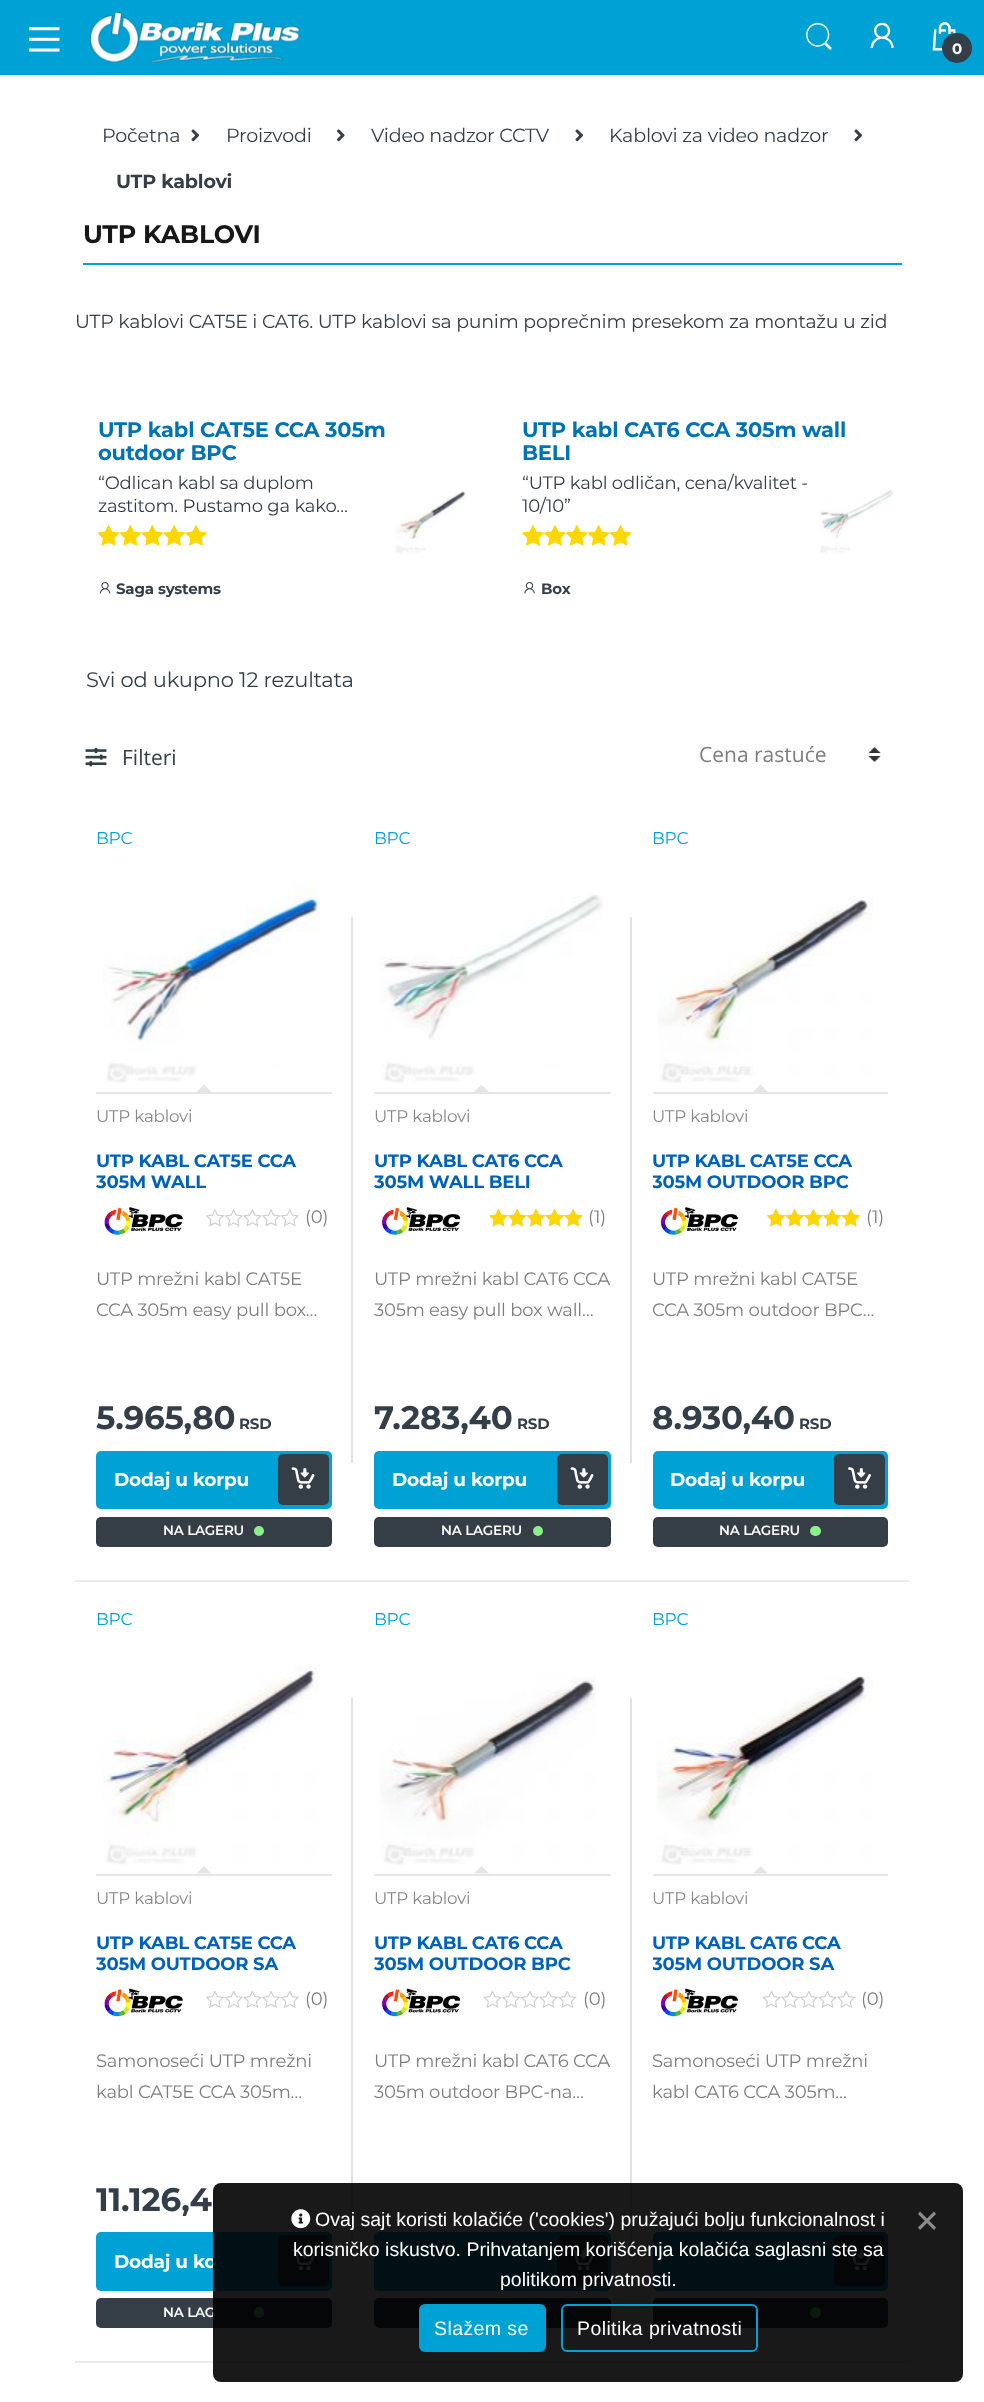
<svg xmlns="http://www.w3.org/2000/svg" width="984" height="2402" viewBox="0 0 984 2402">
  <defs>
    <clipPath id="clip1"><path d="M653 1151h235v42H653z"/></clipPath>
    <clipPath id="clip2"><path d="M653 1932h235v42H653z"/></clipPath>
  </defs>
  <rect width="100%" height="100%" fill="#fff"/>
  <path d="M0 0h984v75H0z" fill="#00a1d5"/>
  <image x="29" y="27" width="31" height="25" href="img/1.png"/>
  <image x="90" y="12" width="210" height="51" href="img/2.png"/>
  <image x="806" y="23" width="26" height="27" href="img/3.png"/>
  <image x="870" y="22" width="24" height="27" href="img/4.png"/>
  <image x="932" y="22" width="24" height="29" href="img/5.png"/>
  <circle cx="957" cy="48" r="15" fill="#333e48"/>
  <image x="191" y="129" width="9" height="13" href="img/6.png"/>
  <image x="337" y="129" width="8" height="13" href="img/7.png"/>
  <image x="575" y="129" width="9" height="13" href="img/6.png"/>
  <image x="854" y="129" width="9" height="13" href="img/6.png"/>
  <path d="M83 263h819v2H83z" fill="#00a1d5"/>
  <image x="98" y="525" width="109" height="21" href="img/8.png"/>
  <image x="98" y="525" width="109" height="21" href="img/9.png"/>
  <image x="394" y="491" width="72" height="63" href="img/10.png"/>
  <image x="99" y="582" width="12" height="12" href="img/11.png"/>
  <image x="522" y="525" width="110" height="21" href="img/12.png"/>
  <image x="522" y="525" width="110" height="21" href="img/13.png"/>
  <image x="819" y="490" width="75" height="64" href="img/14.png"/>
  <image x="524" y="582" width="11" height="12" href="img/15.png"/>
  <image x="85" y="747" width="22" height="20" href="img/16.png"/>
  <image x="868" y="747" width="13" height="15" href="img/17.png"/>
  <path d="M75 1580h834v2H75z" fill="#eaeaea"/>
  <path d="M96 1092h236v2H96z" fill="#e6e6e6"/>
  <image x="103" y="882" width="217" height="201" href="img/18.png"/>
  <path d="M211.5 1092H196.5L204 1084.5Z" fill="#e6e6e6"/>
  <image x="104" y="1206" width="80" height="30" href="img/19.png"/>
  <image x="206" y="1209" width="93" height="18" href="img/20.png"/>
  <rect x="96" y="1451" width="236" height="58" rx="5" fill="#00a1d5"/>
  <rect x="278" y="1454" width="51" height="51" rx="5" fill="#353d46"/>
  <image x="291" y="1467" width="24" height="22" href="img/21.png"/>
  <rect x="96" y="1517" width="236" height="30" rx="5" fill="#353d46"/>
  <circle cx="259" cy="1531" r="5" fill="#8bf08b"/>
  <path d="M351 917h2v546H351z" fill="#e2e2e2"/>
  <path d="M374 1092h237v2H374z" fill="#e6e6e6"/>
  <image x="380" y="895" width="224" height="188" href="img/22.png"/>
  <path d="M489 1092H474L481.5 1084.5Z" fill="#e6e6e6"/>
  <image x="381" y="1206" width="80" height="30" href="img/23.png"/>
  <image x="489" y="1209" width="94" height="18" href="img/24.png"/>
  <image x="489" y="1209" width="94" height="18" href="img/25.png"/>
  <rect x="374" y="1451" width="237" height="58" rx="5" fill="#00a1d5"/>
  <rect x="557" y="1454" width="51" height="51" rx="5" fill="#353d46"/>
  <image x="570" y="1467" width="24" height="22" href="img/21.png"/>
  <rect x="374" y="1517" width="237" height="30" rx="5" fill="#353d46"/>
  <circle cx="538" cy="1531" r="5" fill="#8bf08b"/>
  <path d="M630 917h2v546H630z" fill="#e2e2e2"/>
  <path d="M653 1092h235v2H653z" fill="#e6e6e6"/>
  <image x="658" y="896" width="215" height="187" href="img/26.png"/>
  <path d="M768 1092H753L760.5 1084.5Z" fill="#e6e6e6"/>
  <image x="660" y="1206" width="79" height="30" href="img/27.png"/>
  <image x="767" y="1209" width="93" height="18" href="img/20.png"/>
  <image x="767" y="1209" width="94" height="18" href="img/28.png"/>
  <rect x="653" y="1451" width="235" height="58" rx="5" fill="#00a1d5"/>
  <rect x="834" y="1454" width="51" height="51" rx="5" fill="#353d46"/>
  <image x="848" y="1467" width="23" height="22" href="img/29.png"/>
  <rect x="653" y="1517" width="235" height="30" rx="5" fill="#353d46"/>
  <rect x="810" y="1526" width="11" height="10" rx="5" fill="#8bf08b"/>
  <path d="M75 2361h834v2H75z" fill="#eaeaea"/>
  <path d="M96 1874h236v2H96z" fill="#e6e6e6"/>
  <image x="102" y="1665" width="216" height="200" href="img/30.png"/>
  <path d="M211.5 1873.5H196.5L204 1866Z" fill="#e6e6e6"/>
  <image x="104" y="1987" width="79" height="31" href="img/31.png"/>
  <image x="206" y="1991" width="93" height="17" href="img/32.png"/>
  <rect x="96" y="2232" width="236" height="59" rx="5" fill="#00a1d5"/>
  <rect x="278" y="2235" width="51" height="51" rx="5" fill="#353d46"/>
  <image x="291" y="2248" width="24" height="23" href="img/33.png"/>
  <rect x="96" y="2298" width="236" height="30" rx="5" fill="#353d46"/>
  <rect x="254" y="2307" width="10" height="11" rx="5" fill="#8bf08b"/>
  <path d="M351 1698h2v546H351z" fill="#e2e2e2"/>
  <path d="M374 1874h237v2H374z" fill="#e6e6e6"/>
  <image x="380" y="1677" width="216" height="188" href="img/34.png"/>
  <path d="M489 1873.5H474L481.5 1866Z" fill="#e6e6e6"/>
  <image x="381" y="1987" width="80" height="31" href="img/35.png"/>
  <image x="483" y="1991" width="94" height="17" href="img/36.png"/>
  <rect x="374" y="2232" width="237" height="59" rx="5" fill="#00a1d5"/>
  <rect x="557" y="2235" width="51" height="51" rx="5" fill="#353d46"/>
  <image x="570" y="2248" width="24" height="23" href="img/33.png"/>
  <rect x="374" y="2298" width="237" height="30" rx="5" fill="#353d46"/>
  <path d="M630 1698h2v546H630z" fill="#e2e2e2"/>
  <path d="M653 1874h235v2H653z" fill="#e6e6e6"/>
  <image x="656" y="1676" width="217" height="189" href="img/37.png"/>
  <path d="M768 1873.5H753L760.5 1866Z" fill="#e6e6e6"/>
  <image x="660" y="1988" width="79" height="30" href="img/38.png"/>
  <image x="762" y="1991" width="94" height="17" href="img/36.png"/>
  <rect x="653" y="2232" width="235" height="59" rx="5" fill="#00a1d5"/>
  <rect x="834" y="2235" width="51" height="51" rx="5" fill="#353d46"/>
  <image x="848" y="2248" width="23" height="23" href="img/39.png"/>
  <rect x="653" y="2298" width="235" height="30" rx="5" fill="#353d46"/>
  <circle cx="815.5" cy="2312.5" r="5.5" fill="#8bf08b"/>
  <text x="952" y="54" font-family="Montserrat" font-size="15" font-weight="bold" letter-spacing="-0.2" fill="#fff">0</text>
  <g font-family="Montserrat" font-size="19.1" letter-spacing="-0.2" fill="#333e48">
    <text x="102" y="142">Početna</text>
    <text x="226" y="142">Proizvodi</text>
    <text x="371" y="142">Video nadzor CCTV</text>
    <text x="609" y="142">Kablovi za video nadzor</text>
  </g>
  <text x="116" y="188" font-family="Montserrat" font-size="19.1" font-weight="bold" letter-spacing="-0.2" fill="#333e48">UTP kablovi</text>
  <text x="83" y="243" font-family="Montserrat" font-size="25.25" font-weight="bold" letter-spacing="-0.2" fill="#171717">UTP KABLOVI</text>
  <text x="75" y="328" font-family="Montserrat" font-size="18.9" letter-spacing="-0.2" fill="#333e48">UTP kablovi CAT5E i CAT6. UTP kablovi sa punim poprečnim presekom za montažu u zid</text>
  <g font-family="Montserrat" font-size="21" font-weight="bold" letter-spacing="-0.2" fill="#0073b7">
    <text x="98" y="437">UTP kabl CAT5E CCA 305m</text>
    <text x="98" y="460">outdoor BPC</text>
  </g>
  <g font-family="Montserrat" font-size="18" letter-spacing="-0.2" fill="#333e48">
    <text x="98" y="489">“Odlican kabl sa duplom</text>
    <text x="98" y="512">zastitom. Pustamo ga kako…</text>
  </g>
  <text x="116" y="594" font-family="Montserrat" font-size="15" font-weight="bold" letter-spacing="-0.2" fill="#333e48">Saga systems</text>
  <g font-family="Montserrat" font-size="21" font-weight="bold" letter-spacing="-0.2" fill="#0073b7">
    <text x="522" y="437">UTP kabl CAT6 CCA 305m wall</text>
    <text x="522" y="460">BELI</text>
  </g>
  <g font-family="Montserrat" font-size="18" letter-spacing="-0.2" fill="#333e48">
    <text x="522" y="489">“UTP kabl odličan, cena/kvalitet -</text>
    <text x="522" y="512">10/10”</text>
  </g>
  <text x="541" y="594" font-family="Montserrat" font-size="15" font-weight="bold" letter-spacing="-0.2" fill="#333e48">Box</text>
  <text x="86" y="687" font-family="Montserrat" font-size="21" letter-spacing="-0.2" fill="#333e48">Svi od ukupno 12 rezultata</text>
  <text x="122" y="765" font-family="Open Sans" font-size="21" fill="#333e48">Filteri</text>
  <text x="699" y="762" font-family="Open Sans" font-size="21" fill="#7e7e7e">Cena rastuće</text>
  <text x="96" y="844" font-family="Montserrat" font-size="17" letter-spacing="-0.2" fill="#00a1d5">BPC</text>
  <text x="96" y="1122" font-family="Montserrat" font-size="16.75" letter-spacing="-0.2" fill="#878787">UTP kablovi</text>
  <g font-family="Montserrat" font-size="18" font-weight="bold" letter-spacing="-0.2" fill="#0062bd">
    <text x="96" y="1167">UTP KABL CAT5E CCA</text>
    <text x="96" y="1188">305M WALL</text>
  </g>
  <g font-family="Montserrat" font-size="18" letter-spacing="-0.2" fill="#7e7e7e">
    <text x="305" y="1223">(0)</text>
    <text x="96" y="1285">UTP mrežni kabl CAT5E</text>
    <text x="96" y="1316">CCA 305m easy pull box…</text>
  </g>
  <text x="96" y="1429" font-family="Montserrat" font-size="32.5" font-weight="bold" letter-spacing="-0.2" fill="#333e48">5.965,80</text>
  <text x="239" y="1429" font-family="Montserrat" font-size="15" font-weight="bold" letter-spacing="-0.2" fill="#333e48">RSD</text>
  <text x="114" y="1486" font-family="Montserrat" font-size="18.5" font-weight="bold" letter-spacing="-0.2" fill="#fff">Dodaj u korpu</text>
  <text x="163" y="1535" font-family="Montserrat" font-size="13.5" font-weight="600" letter-spacing="-0.2" fill="#fff">NA LAGERU</text>
  <text x="374" y="844" font-family="Montserrat" font-size="17" letter-spacing="-0.2" fill="#00a1d5">BPC</text>
  <text x="374" y="1122" font-family="Montserrat" font-size="16.75" letter-spacing="-0.2" fill="#878787">UTP kablovi</text>
  <g font-family="Montserrat" font-size="18" font-weight="bold" letter-spacing="-0.2" fill="#0062bd">
    <text x="374" y="1167">UTP KABL CAT6 CCA</text>
    <text x="374" y="1188">305M WALL BELI</text>
  </g>
  <g font-family="Montserrat" font-size="18" letter-spacing="-0.2" fill="#7e7e7e">
    <text x="588" y="1223">(1)</text>
    <text x="374" y="1285">UTP mrežni kabl CAT6 CCA</text>
    <text x="374" y="1316">305m easy pull box wall…</text>
  </g>
  <text x="374" y="1429" font-family="Montserrat" font-size="32.5" font-weight="bold" letter-spacing="-0.2" fill="#333e48">7.283,40</text>
  <text x="517" y="1429" font-family="Montserrat" font-size="15" font-weight="bold" letter-spacing="-0.2" fill="#333e48">RSD</text>
  <text x="392" y="1486" font-family="Montserrat" font-size="18.5" font-weight="bold" letter-spacing="-0.2" fill="#fff">Dodaj u korpu</text>
  <text x="441" y="1535" font-family="Montserrat" font-size="13.5" font-weight="600" letter-spacing="-0.2" fill="#fff">NA LAGERU</text>
  <text x="652" y="844" font-family="Montserrat" font-size="17" letter-spacing="-0.2" fill="#00a1d5">BPC</text>
  <text x="652" y="1122" font-family="Montserrat" font-size="16.75" letter-spacing="-0.2" fill="#878787">UTP kablovi</text>
  <text x="652" y="1167" font-family="Montserrat" font-size="18" font-weight="bold" letter-spacing="-0.2" fill="#0062bd">UTP KABL CAT5E CCA</text>
  <g clip-path="url(#clip1)">
    <text x="652" y="1188" font-family="Montserrat" font-size="18" font-weight="bold" letter-spacing="-0.2" fill="#0062bd">305M OUTDOOR BPC</text>
  </g>
  <g font-family="Montserrat" font-size="18" letter-spacing="-0.2" fill="#7e7e7e">
    <text x="866" y="1223">(1)</text>
    <text x="652" y="1285">UTP mrežni kabl CAT5E</text>
    <text x="652" y="1316">CCA 305m outdoor BPC…</text>
  </g>
  <text x="652" y="1429" font-family="Montserrat" font-size="32.5" font-weight="bold" letter-spacing="-0.2" fill="#333e48">8.930,40</text>
  <text x="799" y="1429" font-family="Montserrat" font-size="15" font-weight="bold" letter-spacing="-0.2" fill="#333e48">RSD</text>
  <text x="670" y="1486" font-family="Montserrat" font-size="18.5" font-weight="bold" letter-spacing="-0.2" fill="#fff">Dodaj u korpu</text>
  <text x="719" y="1535" font-family="Montserrat" font-size="13.5" font-weight="600" letter-spacing="-0.2" fill="#fff">NA LAGERU</text>
  <text x="96" y="1625" font-family="Montserrat" font-size="17" letter-spacing="-0.2" fill="#00a1d5">BPC</text>
  <text x="96" y="1904" font-family="Montserrat" font-size="16.75" letter-spacing="-0.2" fill="#878787">UTP kablovi</text>
  <g font-family="Montserrat" font-size="18" font-weight="bold" letter-spacing="-0.2" fill="#0062bd">
    <text x="96" y="1949">UTP KABL CAT5E CCA</text>
    <text x="96" y="1970">305M OUTDOOR SA</text>
  </g>
  <g font-family="Montserrat" font-size="18" letter-spacing="-0.2" fill="#7e7e7e">
    <text x="305" y="2005">(0)</text>
    <text x="96" y="2067">Samonoseći UTP mrežni</text>
    <text x="96" y="2098">kabl CAT5E CCA 305m…</text>
  </g>
  <text x="96" y="2211" font-family="Montserrat" font-size="32.5" font-weight="bold" letter-spacing="-0.2" fill="#333e48">11.126,4</text>
  <text x="114" y="2268" font-family="Montserrat" font-size="18.5" font-weight="bold" letter-spacing="-0.2" fill="#fff">Dodaj u ko</text>
  <text x="163" y="2317" font-family="Montserrat" font-size="13.5" font-weight="600" letter-spacing="-0.2" fill="#fff">NA LAG</text>
  <text x="374" y="1625" font-family="Montserrat" font-size="17" letter-spacing="-0.2" fill="#00a1d5">BPC</text>
  <text x="374" y="1904" font-family="Montserrat" font-size="16.75" letter-spacing="-0.2" fill="#878787">UTP kablovi</text>
  <g font-family="Montserrat" font-size="18" font-weight="bold" letter-spacing="-0.2" fill="#0062bd">
    <text x="374" y="1949">UTP KABL CAT6 CCA</text>
    <text x="374" y="1970">305M OUTDOOR BPC</text>
  </g>
  <g font-family="Montserrat" font-size="18" letter-spacing="-0.2" fill="#7e7e7e">
    <text x="583" y="2005">(0)</text>
    <text x="374" y="2067">UTP mrežni kabl CAT6 CCA</text>
    <text x="374" y="2098">305m outdoor BPC-na…</text>
  </g>
  <text x="652" y="1625" font-family="Montserrat" font-size="17" letter-spacing="-0.2" fill="#00a1d5">BPC</text>
  <text x="652" y="1904" font-family="Montserrat" font-size="16.75" letter-spacing="-0.2" fill="#878787">UTP kablovi</text>
  <text x="652" y="1949" font-family="Montserrat" font-size="18" font-weight="bold" letter-spacing="-0.2" fill="#0062bd">UTP KABL CAT6 CCA</text>
  <g clip-path="url(#clip2)">
    <text x="652" y="1970" font-family="Montserrat" font-size="18" font-weight="bold" letter-spacing="-0.2" fill="#0062bd">305M OUTDOOR SA</text>
  </g>
  <g font-family="Montserrat" font-size="18" letter-spacing="-0.2" fill="#7e7e7e">
    <text x="861" y="2005">(0)</text>
    <text x="652" y="2067">Samonoseći UTP mrežni</text>
    <text x="652" y="2098">kabl CAT6 CCA 305m…</text>
  </g>
  <rect x="213" y="2183" width="750" height="199" rx="8" fill="#000000e6"/>
  <image x="291" y="2209" width="20" height="20" href="img/40.png"/>
  <g font-family="Liberation Sans" font-size="19.5" fill="#fff">
    <text x="315" y="2226">Ovaj sajt koristi kolačiće ('cookies') pružajući bolju funkcionalnost i</text>
    <text x="293" y="2256">korisničko iskustvo. Prihvatanjem korišćenja kolačića saglasni ste sa</text>
    <text x="500" y="2286">politikom privatnosti.</text>
  </g>
  <path d="M934 2211.5L936 2214L920 2230L918 2227.5Z" fill="#8c8c8c"/>
  <path d="M918 2214L920 2211.5L936 2227.5L934 2230Z" fill="#8c8c8c"/>
  <rect x="420" y="2305" width="125" height="46" rx="5" fill="#00a1d5" stroke="#00a1d5" stroke-width="2"/>
  <text x="434" y="2335" font-family="Liberation Sans" font-size="19.5" letter-spacing="0.4" fill="#fff">Slažem se</text>
  <rect x="562" y="2305" width="195" height="46" rx="5" fill="none" stroke="#00a1d5" stroke-width="2"/>
  <text x="577" y="2335" font-family="Liberation Sans" font-size="19.5" letter-spacing="0.4" fill="#fff">Politika privatnosti</text>
</svg>
